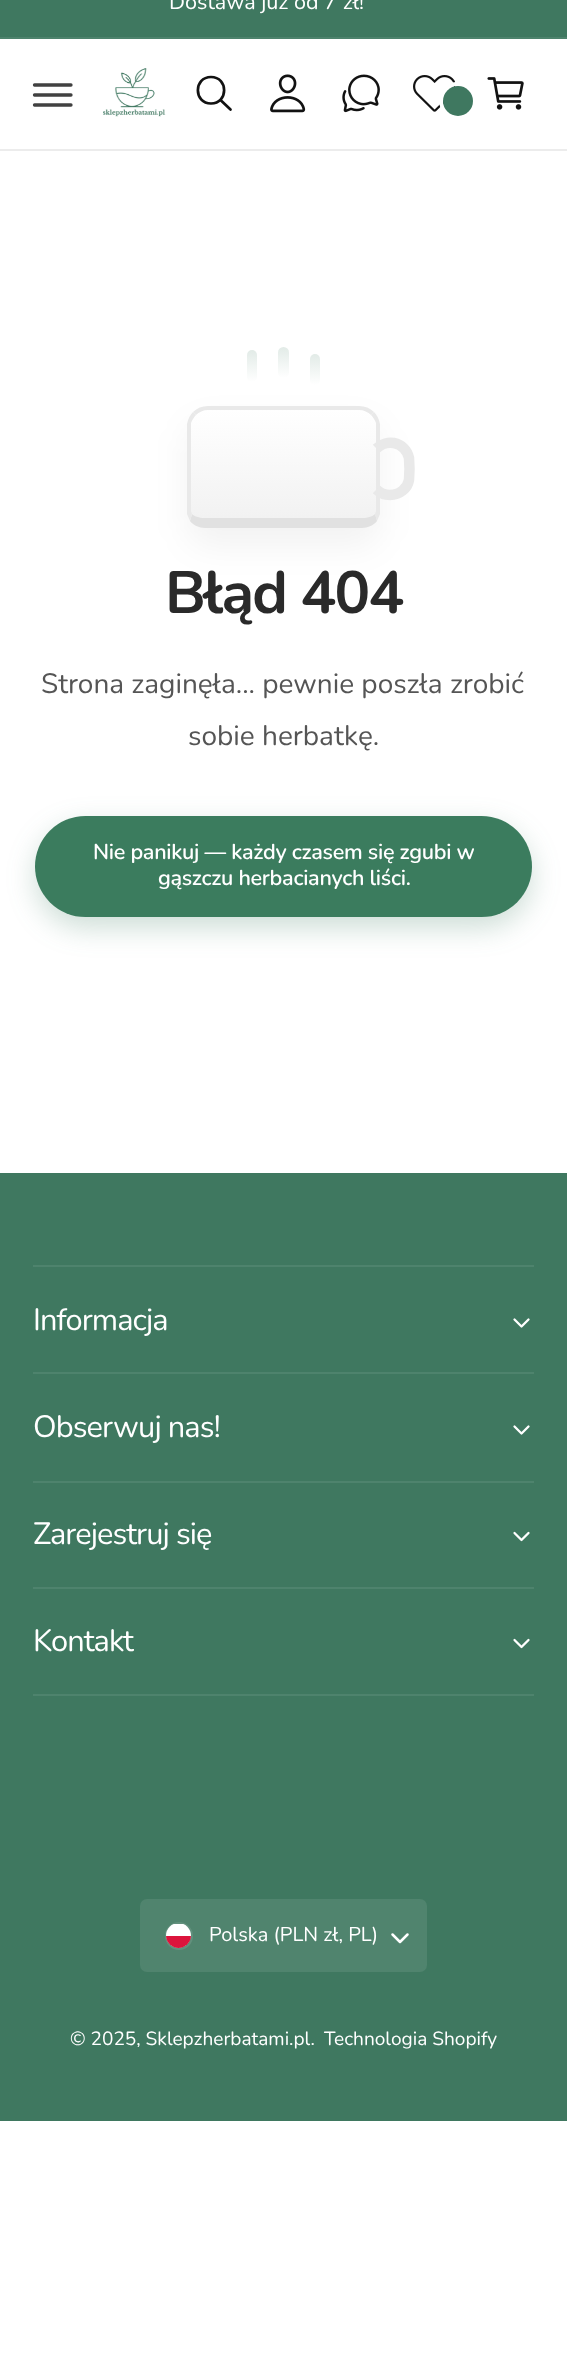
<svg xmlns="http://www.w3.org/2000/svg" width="567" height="2375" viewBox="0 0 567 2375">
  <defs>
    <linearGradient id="g1" gradientUnits="userSpaceOnUse" x1="284" y1="410" x2="284" y2="518"><stop offset="0" stop-color="#fff"/><stop offset="1" stop-color="#f2f2f2"/></linearGradient>
    <linearGradient id="g2" gradientUnits="userSpaceOnUse" x1="252" y1="382" x2="252" y2="350"><stop offset="0" stop-color="#fff"/><stop offset="1" stop-color="#e2ebe7"/></linearGradient>
    <linearGradient id="g3" gradientUnits="userSpaceOnUse" x1="284" y1="378" x2="284" y2="347"><stop offset="0" stop-color="#fff"/><stop offset="1" stop-color="#e2ebe7"/></linearGradient>
    <linearGradient id="g4" gradientUnits="userSpaceOnUse" x1="315" y1="385" x2="315" y2="354"><stop offset="0" stop-color="#fff"/><stop offset="1" stop-color="#e2ebe7"/></linearGradient>
    <clipPath id="clip1"><rect x="166" y="1923" width="25" height="25" rx="12.5"/></clipPath>
  </defs>
  <rect width="100%" height="100%" fill="#fff"/>
  <path d="M0 0h567v37H0z" fill="#3f7860"/>
  <path d="M0 37h567v2H0z" fill="#4e836d"/>
  <path d="M0 149h567v2H0z" fill="#ececec"/>
  <path d="M34.5 85H71M34.5 95H71M34.5 105H71" fill="none" stroke="#414141" stroke-width="3.3" stroke-linecap="round"/>
  <image x="103" y="68" width="63" height="49" href="img/1.png"/>
  <path d="M211 77C193.5 77 193.5 103.5 211 103.5C228.5 103.5 228.5 77 211 77Z" fill="none" stroke="#121212" stroke-width="2.7"/>
  <path d="M221 100.5L230.5 109.5" fill="none" stroke="#121212" stroke-width="2.7" stroke-linecap="round"/>
  <image x="270" y="74" width="36" height="39" href="img/2.png"/>
  <image x="342" y="74" width="38" height="39" href="img/3.png"/>
  <image x="413" y="75" width="42" height="37" href="img/4.png"/>
  <circle cx="457.5" cy="100.5" r="16.5" fill="none" stroke="#fff" stroke-width="4"/>
  <circle cx="458" cy="101" r="15" fill="#3f7860"/>
  <image x="487" y="77" width="37" height="33" href="img/5.png"/>
  <rect x="187" y="424" width="193" height="122" rx="21" fill="#0000000d" filter="blur(17.5px)"/>
  <path d="M208 410H359C368 410 376 417 376 427V511C376 515 370 518 362 518H205C197 518 191 515 191 511V427C191 417 199 410 208 410Z" fill="url(#g1)"/>
  <path d="M208 406C202 406 197 408 193 412L196 415C199 412 203 410 208 410H359C364 410 368 412 371 415L374 412C370 408 365 406 359 406Z" fill="#e9e9e9"/>
  <path d="M380 514C379 516 378 519 377 521L375 514L376 511V423C375 420 373 417 371 415L374 412C377 415 379 419 380 424Z" fill="#e9e9e9"/>
  <path d="M377 521C374 525 368 528 362 528H205C199 528 193 525 190 521L192 514C194 516 199 518 205 518H362C368 518 373 516 375 514Z" fill="#e1e1e1"/>
  <path d="M187 424C188 419 190 415 193 412L196 415C194 417 192 420 191 423V511L192 514L190 521C189 519 188 516 187 514Z" fill="#e9e9e9"/>
  <rect x="247" y="350" width="10" height="32" rx="5" fill="url(#g2)"/>
  <rect x="278" y="347" width="11" height="31" rx="5.5" fill="url(#g3)"/>
  <rect x="310" y="354" width="10" height="31" rx="5" fill="url(#g4)"/>
  <path d="M376.5 448.5C381 444 388 442 394 443C401.5 444.5 407.5 450.5 409 458L409.5 469L409 480C407.5 488.5 399.5 495 390 495C385 495 380 493 376.5 489.5" fill="none" stroke="#e9e9e9" stroke-width="10.5"/>
  <rect x="35" y="826" width="497" height="102" rx="51" fill="#3b7c5e40" filter="blur(14px)"/>
  <rect x="35" y="816" width="497" height="101" rx="50.5" fill="#3b7c5e"/>
  <path d="M0 1173h567v948H0z" fill="#3f7860"/>
  <path d="M33 1265h501v2H33z" fill="#4e836d"/>
  <path d="M33 1372h501v2H33z" fill="#4e836d"/>
  <path d="M514.5 1319.5L521.5 1326.5L528.5 1319.5" fill="none" stroke="#fff" stroke-width="2.3" stroke-linecap="round" stroke-linejoin="round"/>
  <path d="M33 1481h501v2H33z" fill="#4e836d"/>
  <path d="M514.5 1426.5L521.5 1433.5L528.5 1426.5" fill="none" stroke="#fff" stroke-width="2.3" stroke-linecap="round" stroke-linejoin="round"/>
  <path d="M33 1587h501v2H33z" fill="#4e836d"/>
  <path d="M514.5 1533L521.5 1540L528.5 1533" fill="none" stroke="#fff" stroke-width="2.3" stroke-linecap="round" stroke-linejoin="round"/>
  <path d="M33 1694h501v2H33z" fill="#4e836d"/>
  <path d="M514.5 1640L521.5 1647L528.5 1640" fill="none" stroke="#fff" stroke-width="2.3" stroke-linecap="round" stroke-linejoin="round"/>
  <rect x="140" y="1899" width="287" height="73" rx="7" fill="#50846e"/>
  <circle cx="179" cy="1936" r="13" fill="none" stroke="#62907d" stroke-width="2"/>
  <g clip-path="url(#clip1)">
    <path d="M166 1924H191V1935.5C191 1942.5 185.5 1948 178.5 1948C171.5 1948 166 1942.5 166 1935.5Z" fill="#fff"/>
    <path d="M166 1936h25v12H166z" fill="#dc143c"/>
  </g>
  <path d="M392.5 1934.5L400 1942L407.5 1934.5" fill="none" stroke="#fff" stroke-width="2.5" stroke-linecap="round" stroke-linejoin="round"/>
  <text x="169" y="9" font-family="Nunito" font-size="21.6" fill="#fff">Dostawa już od 7 zł!</text>
  <text x="165" y="613" font-family="Nunito" font-size="59.5" font-weight="bold" letter-spacing="-1.75" fill="#2a2a2a">Błąd 404</text>
  <g font-family="Nunito" font-size="28" fill="#555">
    <text x="41" y="693">Strona zaginęła... pewnie poszła zrobić</text>
    <text x="188" y="745">sobie herbatkę.</text>
  </g>
  <g font-family="Nunito" font-size="21.6" font-weight="600" letter-spacing="-0.3" fill="#fff">
    <text x="93" y="859">Nie panikuj — każdy czasem się zgubi w</text>
    <text x="158" y="885">gąszczu herbacianych liści.</text>
  </g>
  <g font-family="Nunito" font-size="30.75" letter-spacing="-0.9" fill="#fff">
    <text x="33" y="1330">Informacja</text>
    <text x="33" y="1437">Obserwuj nas!</text>
    <text x="33" y="1544">Zarejestruj się</text>
    <text x="33" y="1651">Kontakt</text>
  </g>
  <text x="209" y="1941" font-family="Nunito" font-size="20" fill="#fff">Polska (PLN zł, PL)</text>
  <g font-family="Nunito" font-size="19.1" fill="#fff">
    <text x="70" y="2045">© 2025, Sklepzherbatami.pl.</text>
    <text x="324" y="2045">Technologia Shopify</text>
  </g>
</svg>
